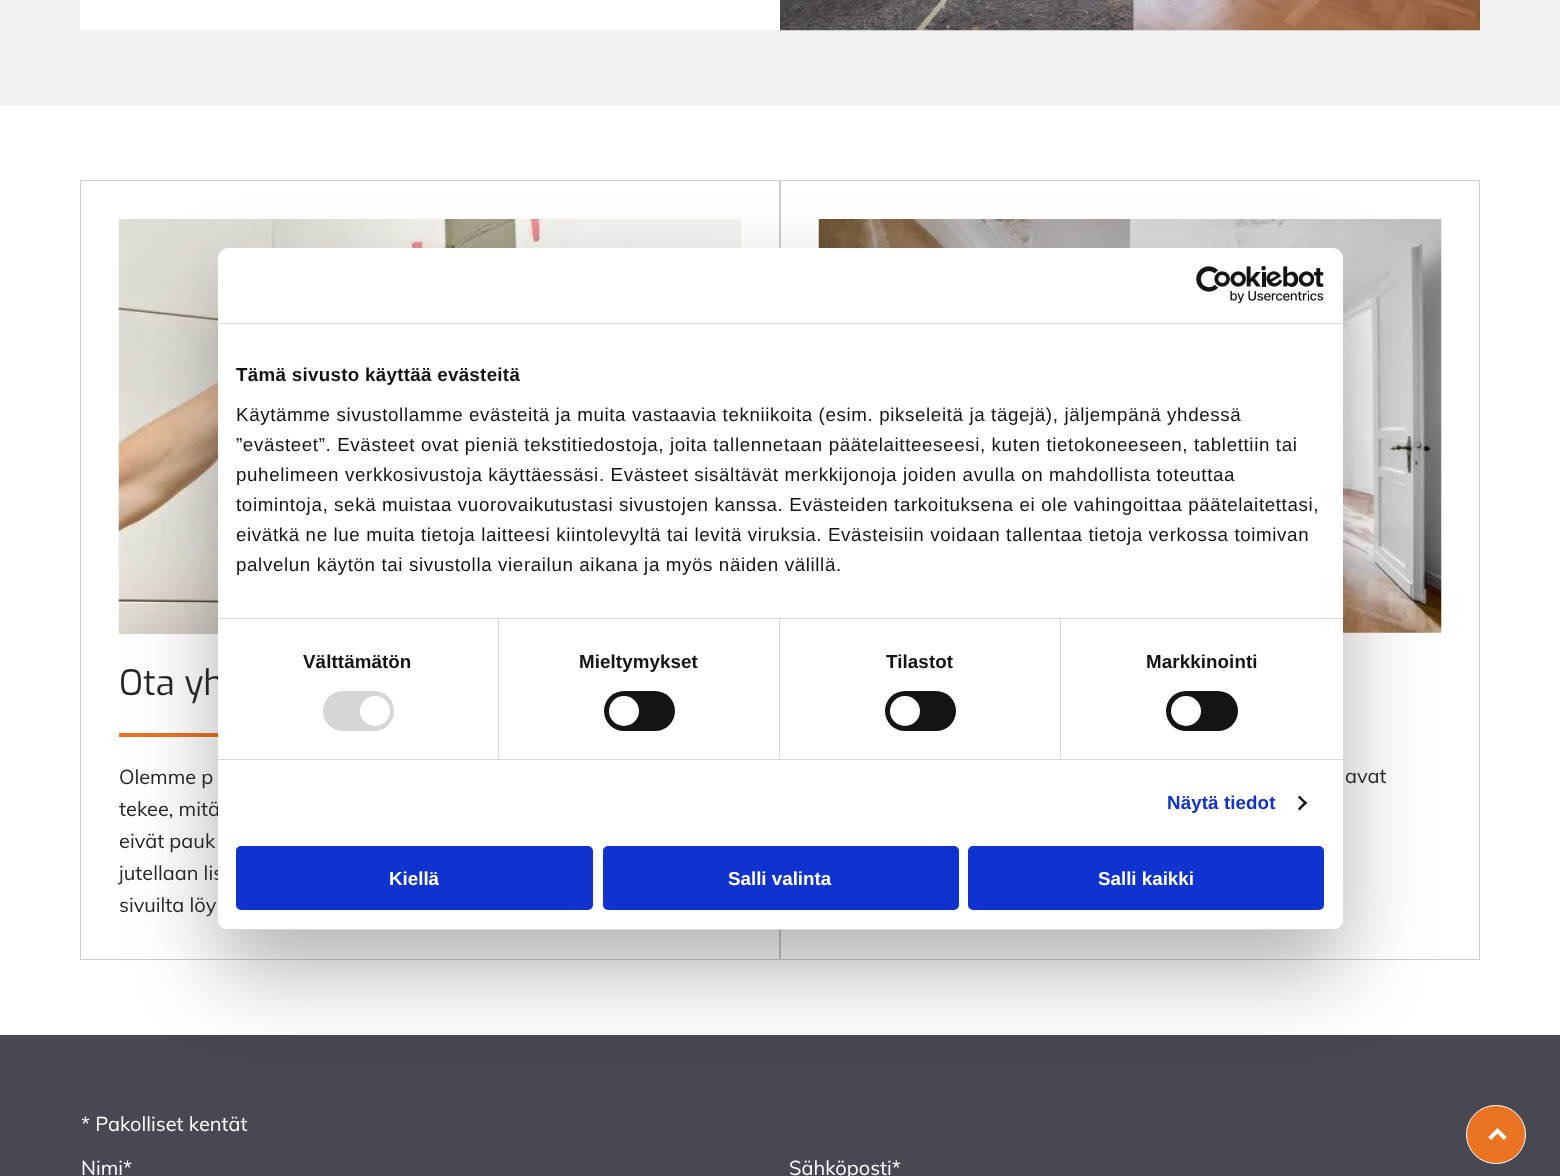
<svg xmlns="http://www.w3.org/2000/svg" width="1560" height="1176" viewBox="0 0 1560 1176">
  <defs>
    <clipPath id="clip1"><rect x="218" y="248" width="1125" height="682" rx="10"/></clipPath>
  </defs>
  <rect width="100%" height="100%" fill="#fff"/>
  <path d="M80.5 180.5h699v779H80.5z" fill="none" stroke="#ccc"/>
  <image x="118" y="219" width="624" height="415" href="img/3.png"/>
  <path d="M119 733h99v4H119z" fill="#ea7422"/>
  <path d="M780.5 180.5h699v779H780.5z" fill="none" stroke="#ccc"/>
  <image x="818" y="219" width="624" height="414" href="img/4.png"/>
  <path d="M0 1035h1560v141H0z" fill="#484852"/>
  <rect x="218" y="288" width="1125" height="682" rx="10" fill="#0000004d" filter="blur(42.5px)"/>
  <path d="M0 0h1560v105H0z" fill="#f1f1f1"/>
  <path d="M80 0h700v30H80z" fill="#fff"/>
  <image x="780" y="0" width="700" height="31" href="img/2.png"/>
  <rect x="1466.5" y="1105.5" width="59" height="58" rx="29" fill="#ea7422" stroke="#fff"/>
  <image x="1488" y="1128" width="19" height="12" href="img/5.png"/>
  <text x="119" y="695" font-family="Exo" font-size="35" fill="#252525">Ota yh</text>
  <g font-family="Muli" font-size="20" fill="#252525">
    <text x="119" y="784">Olemme p</text>
    <text x="119" y="816">tekee, mitä</text>
    <text x="119" y="848">eivät pauk</text>
    <text x="119" y="880">jutellaan lis</text>
  </g>
  <rect x="218" y="248" width="1125" height="682" rx="10" fill="#fff"/>
  <rect x="969.5" y="847.5" width="353" height="61" rx="3.5" fill="#1032cf" stroke="#1032cf" stroke-width="3"/>
  <text x="1098" y="885" font-family="Liberation Sans" font-size="18.75" font-weight="bold" fill="#fff">Salli kaikki</text>
  <rect x="604.5" y="847.5" width="353" height="61" rx="3.5" fill="#1032cf" stroke="#1032cf" stroke-width="3"/>
  <text x="728" y="885" font-family="Liberation Sans" font-size="18.75" font-weight="bold" fill="#fff">Salli valinta</text>
  <rect x="237.5" y="847.5" width="354" height="61" rx="3.5" fill="#1032cf" stroke="#1032cf" stroke-width="3"/>
  <text x="389" y="885" font-family="Liberation Sans" font-size="18.75" font-weight="bold" fill="#fff">Kiellä</text>
  <g clip-path="url(#clip1)">
    <path d="M218 929h1125v1H218z" fill="#d6d6d6"/>
  </g>
  <path d="M1299.5 795.5L1307 803L1305.5 804.5L1298 797.5Z" fill="#141414"/>
  <path d="M1305.5 801L1307 803L1299.5 810.5L1298 808.5Z" fill="#141414"/>
  <rect x="1166" y="691" width="72" height="40" rx="20" fill="#141414"/>
  <circle cx="1186" cy="711" r="15" fill="#fff"/>
  <rect x="885" y="691" width="71" height="40" rx="20" fill="#141414"/>
  <circle cx="905" cy="711" r="15" fill="#fff"/>
  <rect x="604" y="691" width="71" height="40" rx="20" fill="#141414"/>
  <circle cx="624" cy="711" r="15" fill="#fff"/>
  <rect x="323" y="691" width="71" height="40" rx="20" fill="#d6d6d6"/>
  <circle cx="375" cy="711" r="15" fill="#fff"/>
  <g font-family="Liberation Sans" font-size="18.75" letter-spacing="0.62" fill="#141414">
    <text x="236" y="571">palvelun käytön tai sivustolla vierailun aikana ja myös näiden välillä.</text>
    <text x="236" y="541">eivätkä ne lue muita tietoja laitteesi kiintolevyltä tai levitä viruksia. Evästeisiin voidaan tallentaa tietoja verkossa toimivan</text>
    <text x="236" y="511">toimintoja, sekä muistaa vuorovaikutustasi sivustojen kanssa. Evästeiden tarkoituksena ei ole vahingoittaa päätelaitettasi,</text>
    <text x="236" y="481">puhelimeen verkkosivustoja käyttäessäsi. Evästeet sisältävät merkkijonoja joiden avulla on mahdollista toteuttaa</text>
    <text x="236" y="451">”evästeet”. Evästeet ovat pieniä tekstitiedostoja, joita tallennetaan päätelaitteeseesi, kuten tietokoneeseen, tablettiin tai</text>
    <text x="236" y="421">Käytämme sivustollamme evästeitä ja muita vastaavia tekniikoita (esim. pikseleitä ja tägejä), jäljempänä yhdessä</text>
  </g>
  <text x="236" y="381" font-family="Liberation Sans" font-size="18.75" font-weight="bold" letter-spacing="0.3" fill="#141414">Tämä sivusto käyttää evästeitä</text>
  <path d="M218 618h1125v1H218z" fill="#d6d6d6"/>
  <text x="1167" y="809" font-family="Liberation Sans" font-size="18.75" font-weight="bold" letter-spacing="0.1" fill="#1032cf">Näytä tiedot</text>
  <g font-family="Liberation Sans" font-size="18.75" font-weight="bold" letter-spacing="0.1" fill="#141414">
    <text x="1146" y="668">Markkinointi</text>
    <text x="886" y="668">Tilastot</text>
  </g>
  <path d="M1060 619h1v140H1060z" fill="#d6d6d6"/>
  <text x="579" y="668" font-family="Liberation Sans" font-size="18.75" font-weight="bold" letter-spacing="0.1" fill="#141414">Mieltymykset</text>
  <path d="M779 619h1v140H779z" fill="#d6d6d6"/>
  <text x="303" y="668" font-family="Liberation Sans" font-size="18.75" font-weight="bold" letter-spacing="0.1" fill="#141414">Välttämätön</text>
  <path d="M498 619h1v140H498z" fill="#d6d6d6"/>
  <path d="M218 759h1125v1H218z" fill="#d6d6d6"/>
  <image x="1196" y="266" width="128" height="38" href="img/1.png"/>
  <path d="M218 323h1125v1H218z" fill="#d6d6d6"/>
  <g font-family="Muli" font-size="20" fill="#252525">
    <text x="119" y="912">sivuilta löy</text>
    <text x="1345" y="783">avat</text>
  </g>
  <g font-family="Muli" font-size="20" fill="#fff">
    <text x="81" y="1131">* Pakolliset kentät</text>
    <text x="81" y="1175">Nimi*</text>
    <text x="789" y="1175">Sähköposti*</text>
  </g>
</svg>
